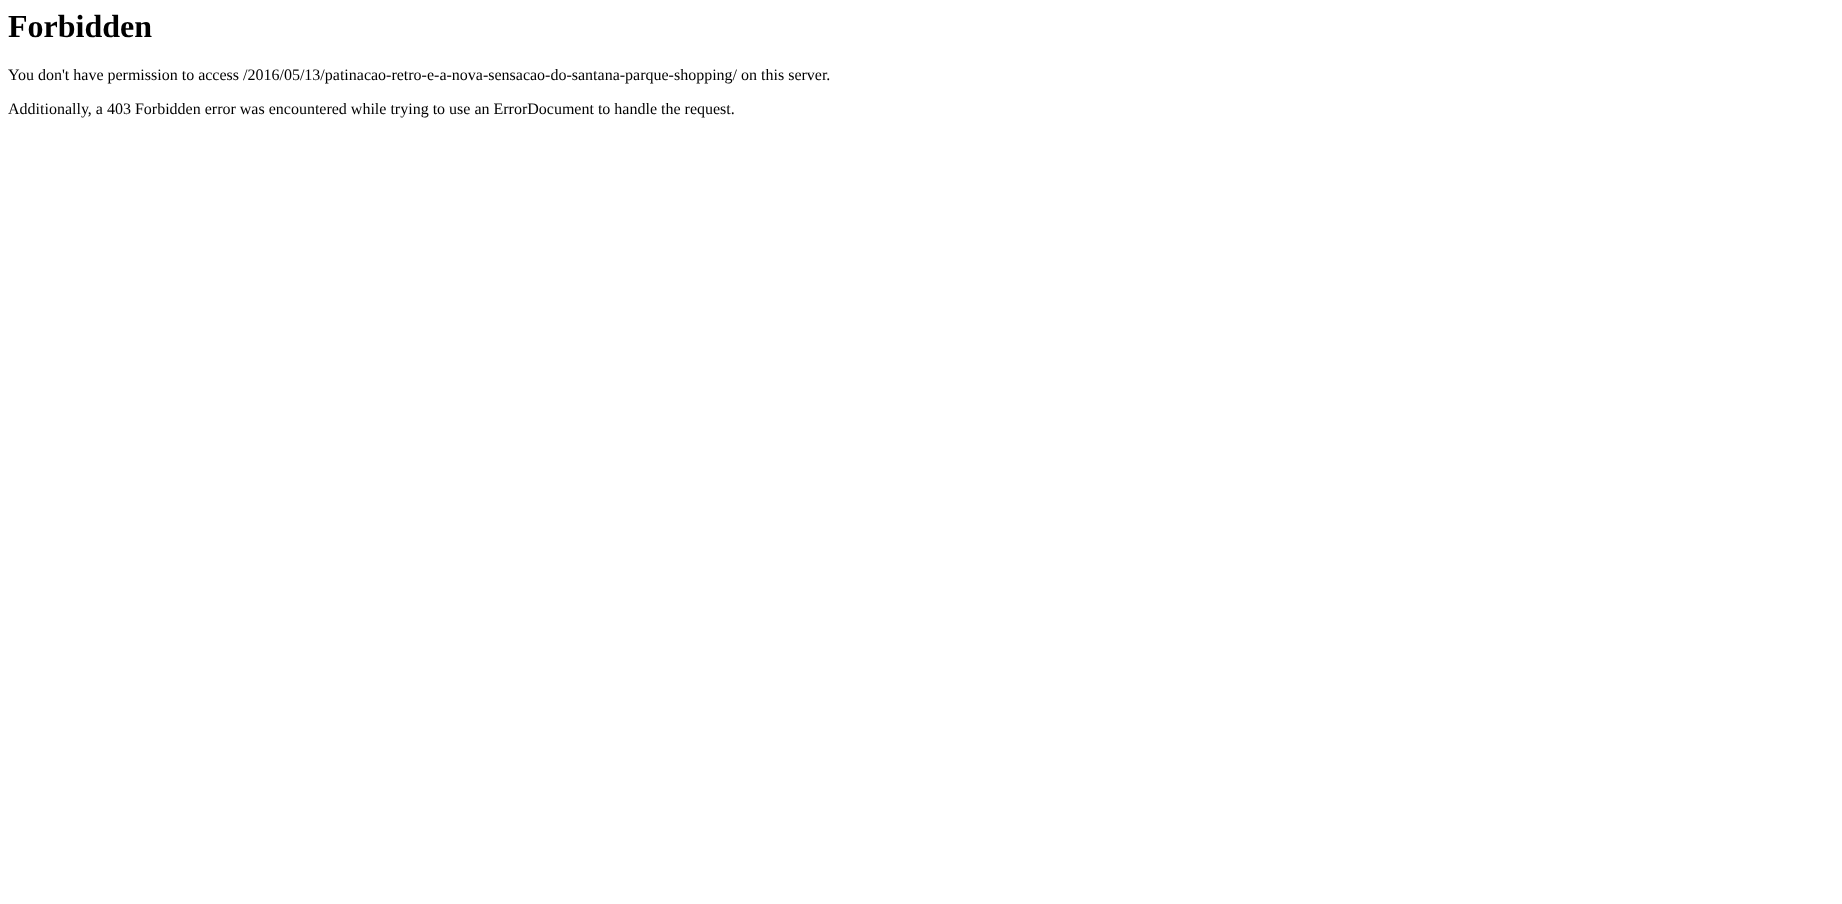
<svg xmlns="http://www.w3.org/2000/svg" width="1842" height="904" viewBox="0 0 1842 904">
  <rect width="100%" height="100%" fill="#fff"/>
  <text x="8" y="37" font-family="Liberation Serif" font-size="32" font-weight="bold" fill="#000">Forbidden</text>
  <g font-family="Liberation Serif" font-size="16" fill="#000">
    <text x="8" y="80">You don't have permission to access /2016/05/13/patinacao-retro-e-a-nova-sensacao-do-santana-parque-shopping/ on this server.</text>
    <text x="8" y="114">Additionally, a 403 Forbidden error was encountered while trying to use an ErrorDocument to handle the request.</text>
  </g>
</svg>
